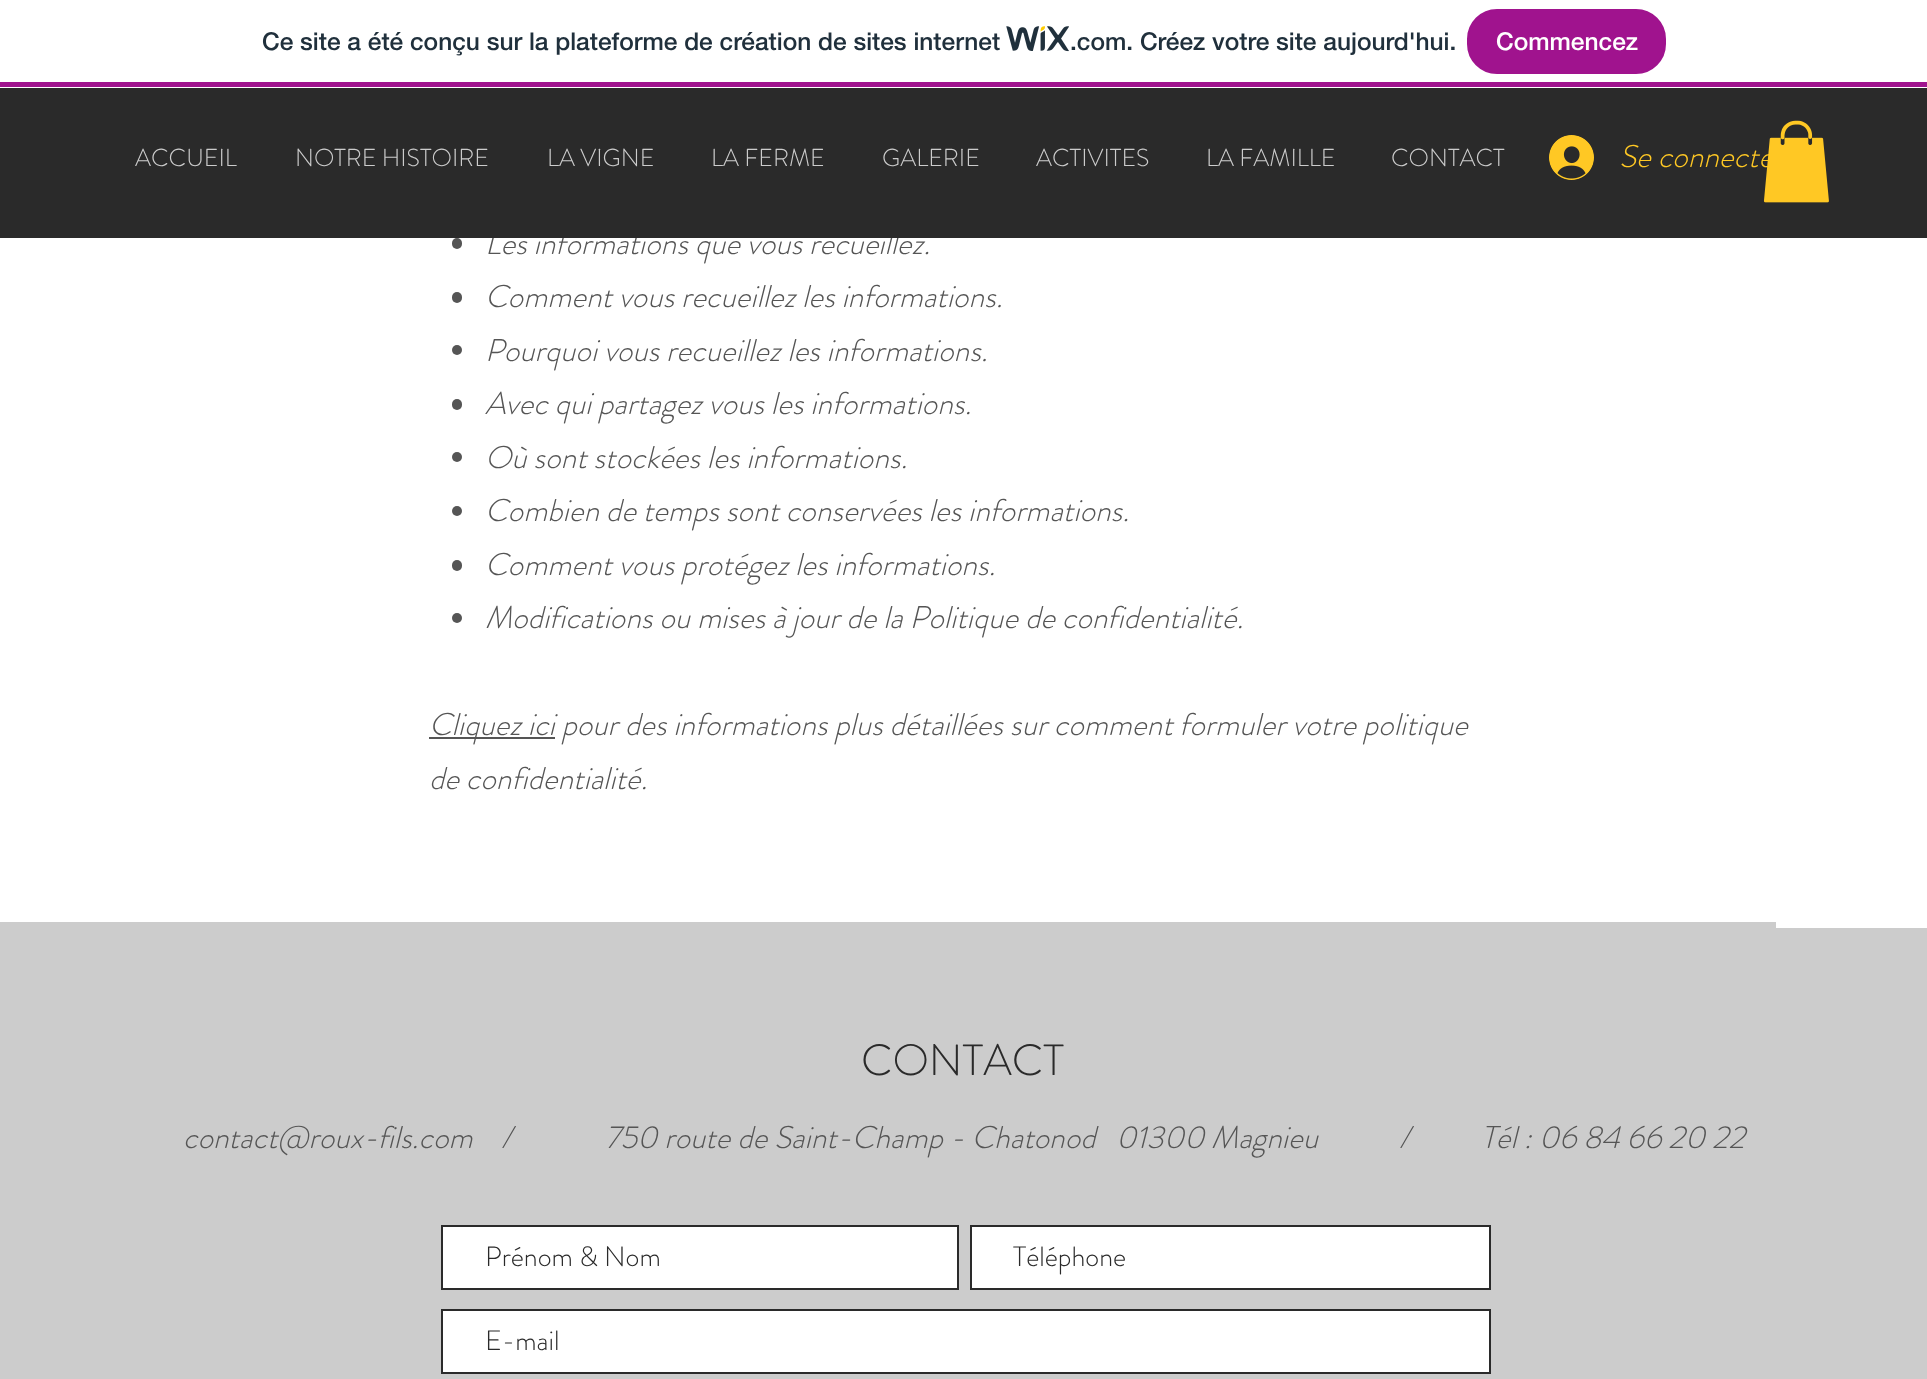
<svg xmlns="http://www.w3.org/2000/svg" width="1927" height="1379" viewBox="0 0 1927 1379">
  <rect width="100%" height="100%" fill="#fff"/>
  <path d="M0 82h1927v5H0z" fill="#a0138e"/>
  <image x="1006" y="26" width="63" height="26" href="img/1.png"/>
  <rect x="1468" y="10" width="197" height="63" rx="29" fill="#a0138e" stroke="#a0138e" stroke-width="2"/>
  <rect x="452" y="238" width="10" height="11" rx="5" fill="#555"/>
  <rect x="452" y="292" width="10" height="11" rx="5" fill="#555"/>
  <circle cx="457" cy="350" r="5" fill="#555"/>
  <rect x="452" y="399" width="10" height="11" rx="5" fill="#555"/>
  <circle cx="457" cy="457" r="5" fill="#555"/>
  <circle cx="457" cy="511" r="5" fill="#555"/>
  <rect x="452" y="560" width="10" height="11" rx="5" fill="#555"/>
  <circle cx="457" cy="618" r="5" fill="#555"/>
  <path d="M429 737h126v2H429z" fill="#555"/>
  <path d="M0 922h1927v457H0z" fill="#ccc"/>
  <path d="M1776 922h151v6H1776z" fill="#fff"/>
  <path d="M442 1226h516v63H442z" fill="#fff" stroke="#2a2a2a" stroke-width="2"/>
  <path d="M971 1226h519v63H971z" fill="#fff" stroke="#2a2a2a" stroke-width="2"/>
  <path d="M442 1310h1048v63H442z" fill="#fff" stroke="#2a2a2a" stroke-width="2"/>
  <g font-family="'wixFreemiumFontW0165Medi'" font-size="24.5" font-weight="500" fill="#20303c">
    <text x="262" y="50">Ce site a été conçu sur la plateforme de création de sites internet</text>
    <text x="1070" y="50">.com. Créez votre site aujourd'hui.</text>
  </g>
  <text x="1496" y="50" font-family="'wixFreemiumFontW0165Medi'" font-size="24.5" font-weight="500" fill="#fff">Commencez</text>
  <text x="485" y="254" font-family="'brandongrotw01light'" font-size="31.5" font-weight="300" font-style="italic" fill="#555">Les informations que vous recueillez.</text>
  <path d="M0 88h1927v150H0z" fill="#2a2a2a"/>
  <text x="1619" y="167" font-family="'brandongrotw01light'" font-size="31.5" font-weight="300" font-style="italic" fill="#ffc824">Se connecte</text>
  <image x="1763" y="120" width="66" height="83" href="img/3.png"/>
  <image x="1549" y="135" width="45" height="45" href="img/2.png"/>
  <g font-family="'brandongrotw01light'" font-size="24.5" font-weight="300" fill="#ccc">
    <text x="1391" y="166">CONTACT</text>
    <text x="1206" y="166">LA FAMILLE</text>
    <text x="1036" y="166">ACTIVITES</text>
    <text x="882" y="166">GALERIE</text>
    <text x="711" y="166">LA FERME</text>
    <text x="547" y="166">LA VIGNE</text>
    <text x="295" y="166">NOTRE HISTOIRE</text>
    <text x="135" y="166">ACCUEIL</text>
  </g>
  <g font-family="'brandongrotw01light'" font-size="31.5" font-weight="300" font-style="italic" fill="#555">
    <text x="485" y="307">Comment vous recueillez les informations.</text>
    <text x="485" y="361">Pourquoi vous recueillez les informations.</text>
    <text x="485" y="414">Avec qui partagez vous les informations.</text>
    <text x="485" y="468">Où sont stockées les informations.</text>
    <text x="485" y="521">Combien de temps sont conservées les informations.</text>
    <text x="485" y="575">Comment vous protégez les informations.</text>
    <text x="485" y="628">Modifications ou mises à jour de la Politique de confidentialité.</text>
    <text x="429" y="735">Cliquez ici pour des informations plus détaillées sur comment formuler votre politique</text>
    <text x="429" y="789">de confidentialité.</text>
  </g>
  <text x="861" y="1075" font-family="'brandongrotw01light'" font-size="43.75" font-weight="300" fill="#2a2a2a">CONTACT</text>
  <g font-family="'brandongrotw01light'" font-size="31.5" font-weight="300" font-style="italic" fill="#555">
    <text x="183" y="1148">contact@roux-fils.com</text>
    <text x="501" y="1148">/</text>
    <text x="605" y="1148" xml:space="preserve">750 route de Saint-Champ - Chatonod   01300 Magnieu</text>
    <text x="1399" y="1148">/</text>
    <text x="1481" y="1148">Tél : 06 84 66 20 22</text>
  </g>
  <g font-family="'brandongrotw01light'" font-size="28" font-weight="300" fill="#2a2a2a">
    <text x="485" y="1266">Prénom &amp; Nom</text>
    <text x="1013" y="1266">Téléphone</text>
    <text x="485" y="1350">E-mail</text>
  </g>
</svg>
